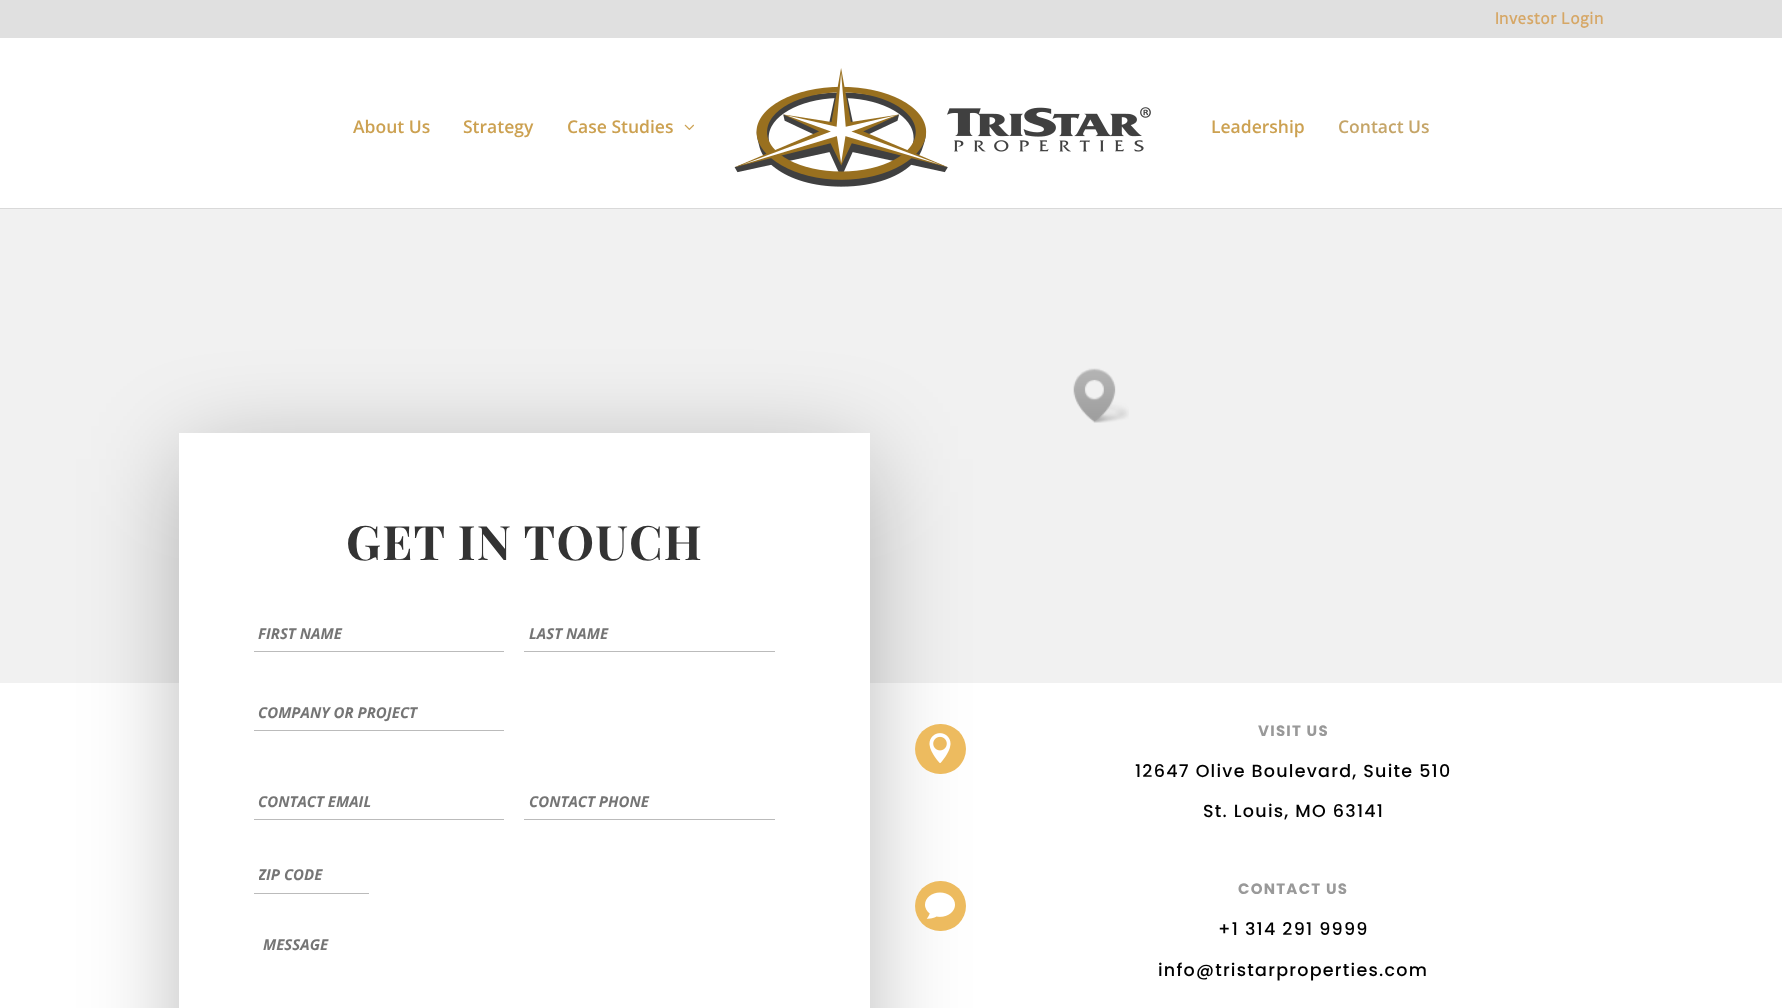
<svg xmlns="http://www.w3.org/2000/svg" width="1782" height="1008" viewBox="0 0 1782 1008">
  <defs>
    <clipPath id="clip1"><path d="M259 864h105v21H259z"/></clipPath>
  </defs>
  <rect width="100%" height="100%" fill="#fff"/>
  <path d="M0 0h1782v38H0z" fill="#e0e0e0"/>
  <path d="M0 208V209H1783V39H1782V208Z" fill="#d9d9d9"/>
  <image x="684" y="124" width="10" height="6" href="img/1.png"/>
  <image x="734" y="68" width="417" height="119" href="img/2.png"/>
  <path d="M0 209h1782v474H0z" fill="#f1f1f1"/>
  <image x="1073" y="368" width="56" height="55" href="img/3.png"/>
  <path d="M186 459h677v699H186z" fill="#0000004d" filter="blur(50px)"/>
  <path d="M179 433h691v575H179z" fill="#fff"/>
  <path d="M254 651h250v1H254z" fill="#bbb"/>
  <path d="M524 651h251v1H524z" fill="#bbb"/>
  <path d="M254 730h250v1H254z" fill="#bbb"/>
  <path d="M254 819h250v1H254z" fill="#bbb"/>
  <path d="M524 819h251v1H524z" fill="#bbb"/>
  <path d="M254 893h115v1H254z" fill="#bbb"/>
  <rect x="915" y="724" width="51" height="50" rx="25" fill="#edbb5f"/>
  <image x="929" y="733" width="22" height="30" href="img/4.png"/>
  <rect x="915" y="881" width="51" height="50" rx="25" fill="#edbb5f"/>
  <image x="925" y="892" width="30" height="27" href="img/5.png"/>
  <text x="1495" y="24" font-family="Duru Sans" font-size="15" font-weight="bold" fill="#d6a766">Investor Login</text>
  <g font-family="Open Sans" font-size="17.5" font-weight="600" fill="#cca151">
    <text x="353" y="133">About Us</text>
    <text x="463" y="133">Strategy</text>
    <text x="567" y="133">Case Studies</text>
    <text x="1211" y="133">Leadership</text>
  </g>
  <text x="1338" y="133" font-family="Open Sans" font-size="17.5" font-weight="600" fill="#c5a568">Contact Us</text>
  <text x="346" y="560" font-family="Playfair Display" font-size="47.5" font-weight="bold" letter-spacing="1.25" fill="#333">GET IN TOUCH</text>
  <g font-family="Open Sans" font-size="15" font-weight="bold" font-style="italic" fill="#757575">
    <text x="258" y="639">FIRST NAME</text>
    <text x="529" y="639">LAST NAME</text>
    <text x="258" y="718">COMPANY OR PROJECT</text>
    <text x="258" y="807">CONTACT EMAIL</text>
    <text x="529" y="807">CONTACT PHONE</text>
  </g>
  <g clip-path="url(#clip1)">
    <text x="258" y="880" font-family="Open Sans" font-size="15" font-weight="bold" font-style="italic" fill="#757575">ZIP CODE</text>
  </g>
  <text x="263" y="950" font-family="Open Sans" font-size="15" font-weight="bold" font-style="italic" fill="#757575">MESSAGE</text>
  <text x="1258" y="736" font-family="Poppins" font-size="15" font-weight="bold" letter-spacing="1.25" fill="#999">VISIT US</text>
  <g font-family="Poppins" font-size="17.5" font-weight="500" letter-spacing="1.25" fill="#000">
    <text x="1135" y="777">12647 Olive Boulevard, Suite 510</text>
    <text x="1203" y="817">St. Louis, MO 63141</text>
  </g>
  <text x="1238" y="894" font-family="Poppins" font-size="15" font-weight="bold" letter-spacing="1.25" fill="#999">CONTACT US</text>
  <g font-family="Poppins" font-size="17.5" font-weight="500" letter-spacing="1.25" fill="#000">
    <text x="1218" y="935">+1 314 291 9999</text>
    <text x="1158" y="976">info@tristarproperties.com</text>
  </g>
</svg>
